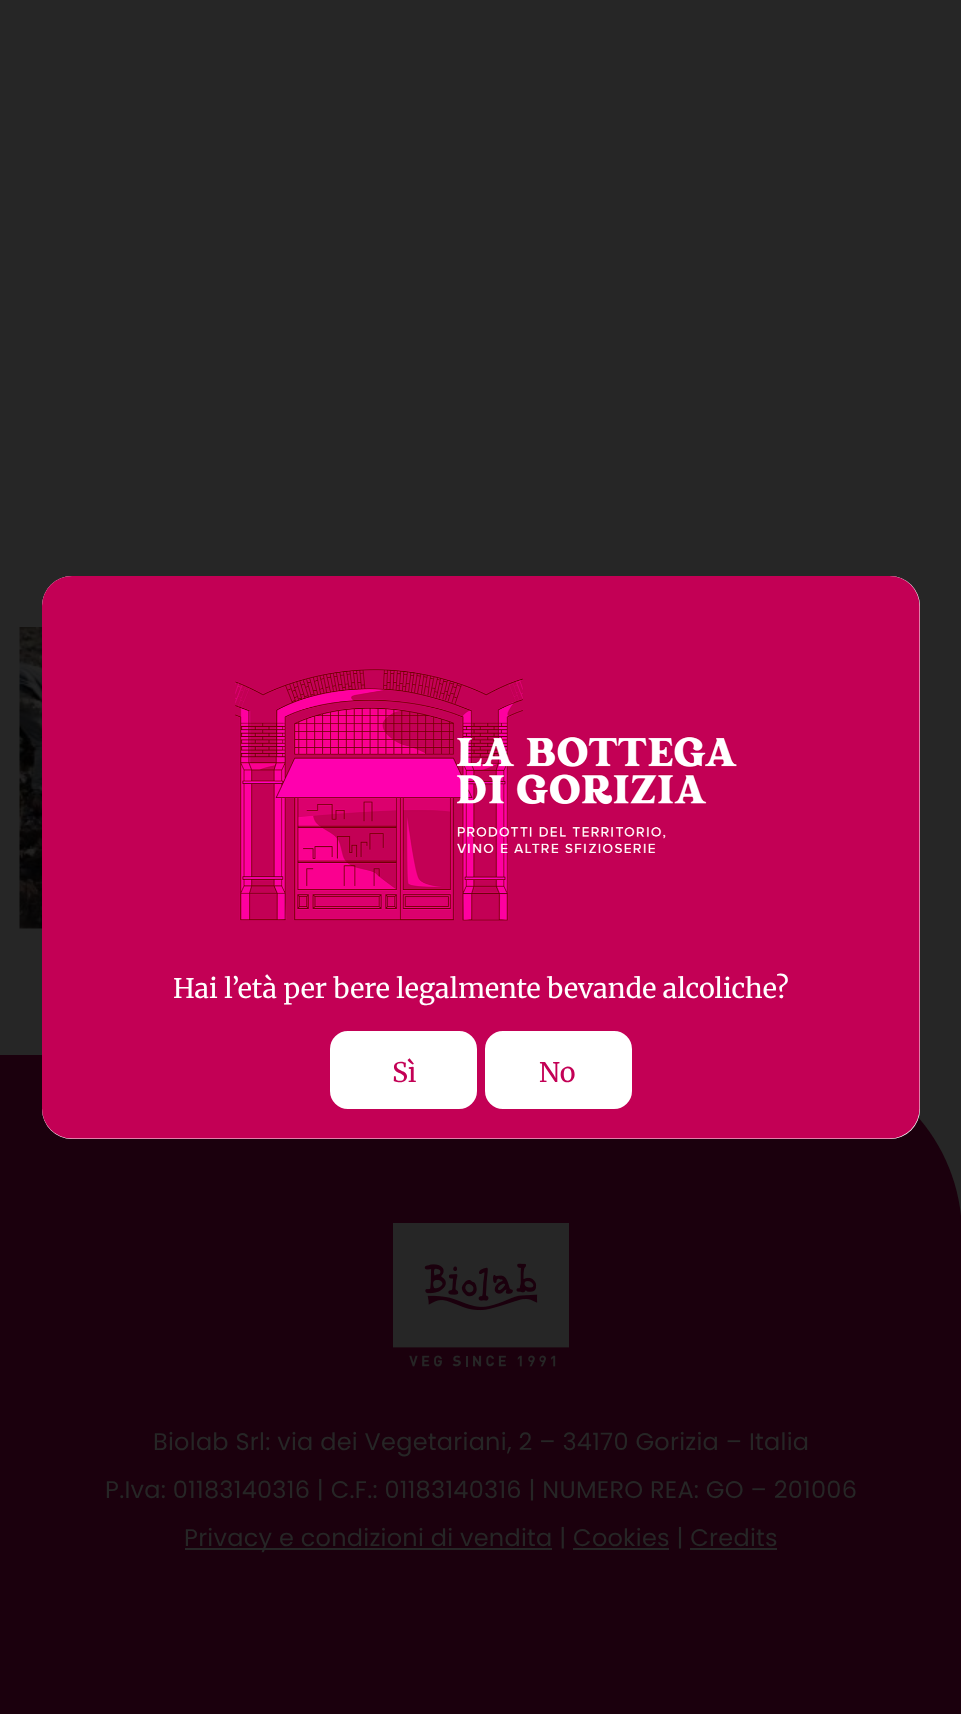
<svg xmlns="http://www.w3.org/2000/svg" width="961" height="1714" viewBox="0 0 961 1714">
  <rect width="100%" height="100%" fill="#262626"/>
  <image x="19" y="627" width="23" height="302" href="img/1.png"/>
  <path d="M0 1055H782C881.5 1055 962 1135.5 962 1235V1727H0Z" fill="#1b000d"/>
  <rect x="42" y="576" width="878" height="563" rx="30" fill="#fff"/>
  <image x="42" y="576" width="878" height="563" href="img/2.png"/>
  <rect x="331" y="1032" width="145" height="76" rx="17" fill="#fff" stroke="#fff" stroke-width="2"/>
  <rect x="486" y="1032" width="145" height="76" rx="17" fill="#fff" stroke="#fff" stroke-width="2"/>
  <image x="393" y="1223" width="176" height="144" href="img/3.png"/>
  <path d="M185 1548h367v2H185z" fill="#262626"/>
  <path d="M573 1548h96v2H573z" fill="#262626"/>
  <path d="M690 1548h87v2H690z" fill="#262626"/>
  <text x="173" y="998" font-family="Merriweather" font-size="27" font-weight="300" fill="#fff">Hai l’età per bere legalmente bevande alcoliche?</text>
  <g font-family="Merriweather" font-size="27" font-weight="300" fill="#c30055">
    <text x="392" y="1082">Sì</text>
    <text x="539" y="1082">No</text>
  </g>
  <g font-family="Poppins" font-size="24" letter-spacing="0.25" fill="#262626">
    <text x="153" y="1450">Biolab Srl: via dei Vegetariani, 2 – 34170 Gorizia – Italia</text>
    <text x="105" y="1498">P.Iva: 01183140316 | C.F.: 01183140316 | NUMERO REA: GO – 201006</text>
    <text x="184" y="1546">Privacy e condizioni di vendita | Cookies | Credits</text>
  </g>
</svg>
